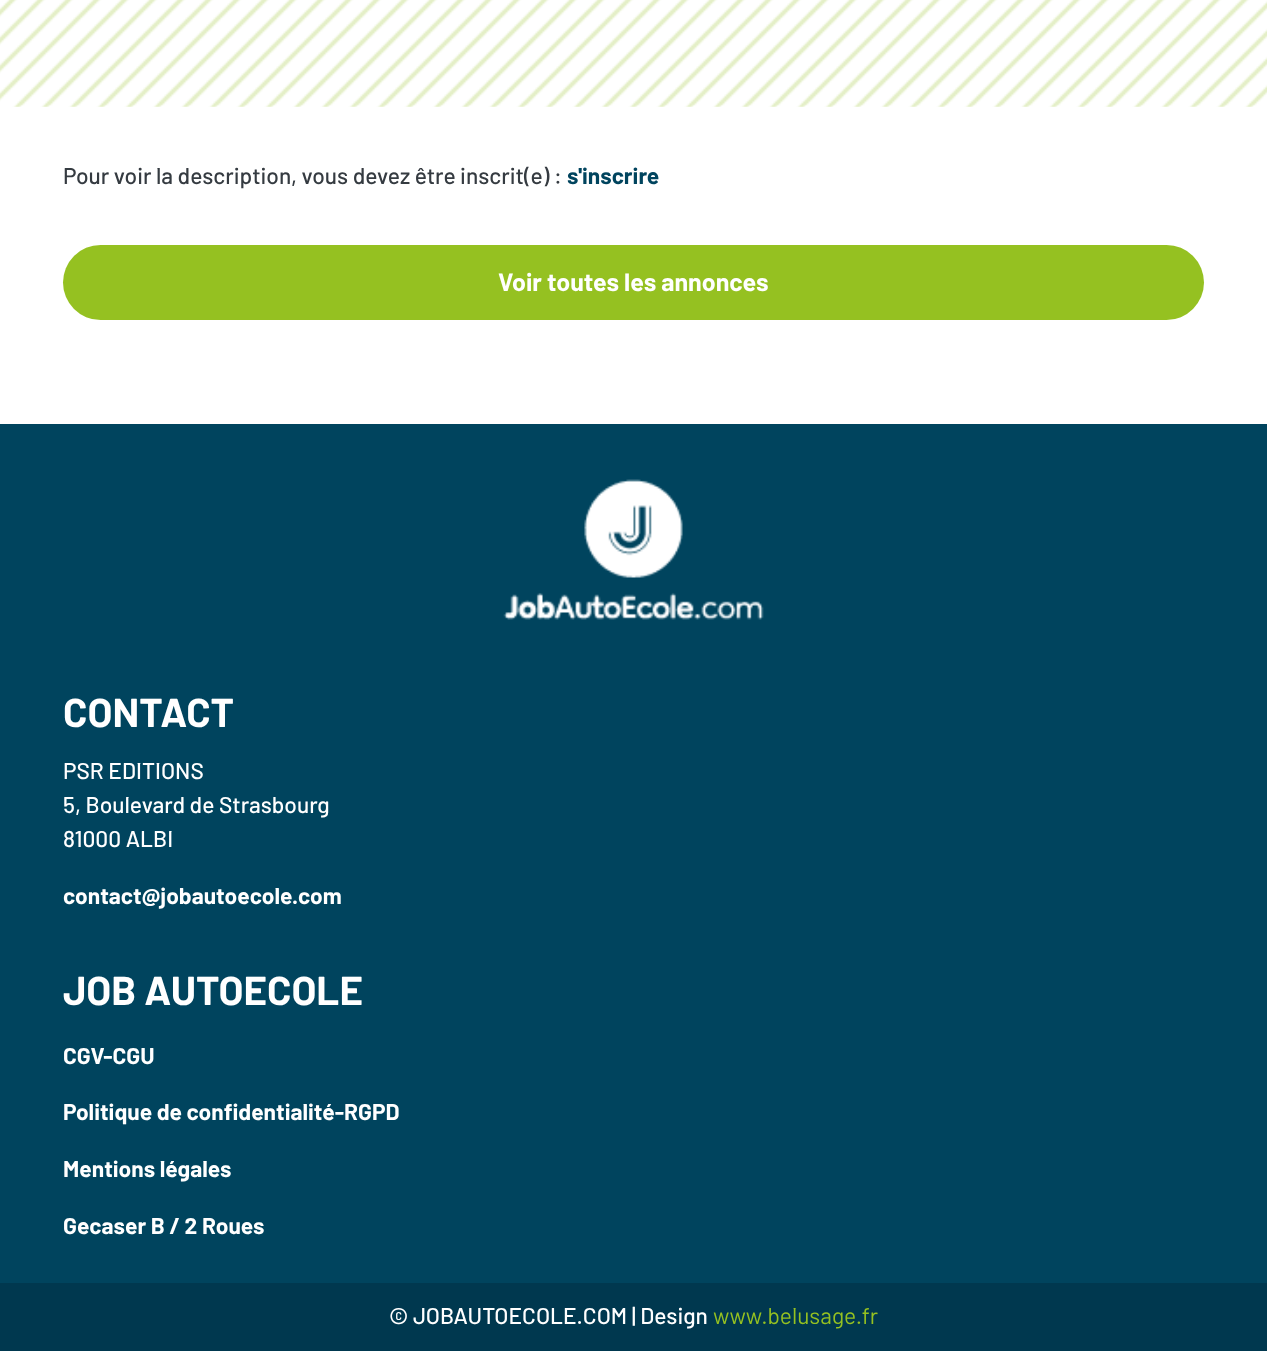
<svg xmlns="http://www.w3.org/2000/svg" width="1267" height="1351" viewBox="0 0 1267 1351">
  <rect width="100%" height="100%" fill="#fff"/>
  <image x="0" y="0" width="1267" height="107" href="img/1.png"/>
  <rect x="63" y="245" width="1141" height="75" rx="37.5" fill="#95c121"/>
  <path d="M0 424h1267v859H0z" fill="#00445e"/>
  <image x="503" y="479" width="261" height="141" href="img/2.png"/>
  <path d="M0 1283h1267v68H0z" fill="#00384f"/>
  <text x="63" y="184" font-family="Barlow" font-size="22.75" font-weight="500" fill="#353b41">Pour voir la description, vous devez être inscrit(e) :</text>
  <text x="567" y="184" font-family="Barlow" font-size="22.75" font-weight="bold" fill="#00445e">s'inscrire</text>
  <text x="498" y="291" font-family="Barlow" font-size="25" font-weight="bold" fill="#fff">Voir toutes les annonces</text>
  <text x="63" y="727" font-family="Barlow" font-size="40.25" font-weight="bold" fill="#fff">CONTACT</text>
  <g font-family="Barlow" font-size="22.75" font-weight="500" fill="#fff">
    <text x="63" y="779">PSR EDITIONS</text>
    <text x="63" y="813">5, Boulevard de Strasbourg</text>
    <text x="63" y="847">81000 ALBI</text>
  </g>
  <text x="63" y="904" font-family="Barlow" font-size="22.75" font-weight="bold" fill="#fff">contact@jobautoecole.com</text>
  <text x="63" y="1005" font-family="Barlow" font-size="40.25" font-weight="bold" fill="#fff">JOB AUTOECOLE</text>
  <g font-family="Barlow" font-size="22.75" font-weight="bold" fill="#fff">
    <text x="63" y="1064">CGV-CGU</text>
    <text x="63" y="1120">Politique de confidentialité-RGPD</text>
    <text x="63" y="1177">Mentions légales</text>
    <text x="63" y="1234">Gecaser B / 2 Roues</text>
  </g>
  <text x="389" y="1324" font-family="Barlow" font-size="22.75" font-weight="500" fill="#fff">© JOBAUTOECOLE.COM | Design</text>
  <text x="713" y="1324" font-family="Barlow" font-size="22.75" fill="#95c121">www.belusage.fr</text>
</svg>
